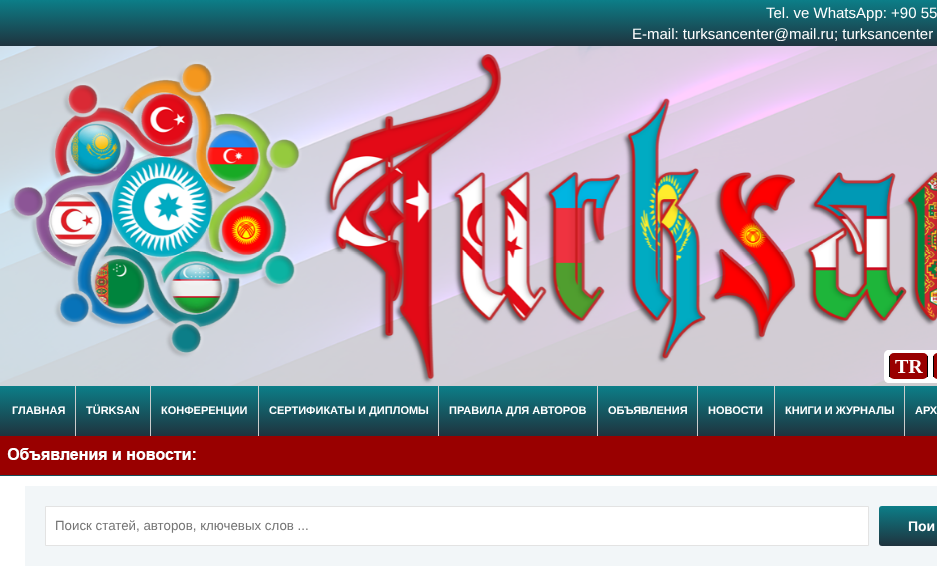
<svg xmlns="http://www.w3.org/2000/svg" width="937" height="575" viewBox="0 0 937 575">
  <defs>
    <linearGradient id="g1" gradientUnits="userSpaceOnUse" x1="512" y1="0" x2="512" y2="46"><stop offset="0" stop-color="#0c7e88"/><stop offset="1" stop-color="#1f333e"/></linearGradient>
    <linearGradient id="g2" gradientUnits="userSpaceOnUse" x1="512" y1="386" x2="512" y2="436"><stop offset="0" stop-color="#0c7e88"/><stop offset="1" stop-color="#1f333e"/></linearGradient>
    <linearGradient id="g3" gradientUnits="userSpaceOnUse" x1="929" y1="506" x2="929" y2="546"><stop offset="0" stop-color="#0c7e88"/><stop offset="1" stop-color="#1f333e"/></linearGradient>
  </defs>
  <rect width="100%" height="100%" fill="#fff"/>
  <path d="M0 0h937v46H0z" fill="url(#g1)"/>
  <image x="0" y="46" width="937" height="340" href="img/1.png"/>
  <path d="M889 350H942V383H889C886 383 884 381 884 378V355C884 352 886 350 889 350Z" fill="#fff"/>
  <rect x="933" y="353" width="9" height="26" rx="5" fill="#900"/>
  <rect x="889" y="353" width="39" height="26" rx="5" fill="#900"/>
  <path d="M927 356h1v21H927z" fill="#000"/>
  <path d="M889 356h1v21H889z" fill="#000"/>
  <path d="M933 356h1v21H933z" fill="#000"/>
  <path d="M0 386h937v50H0z" fill="url(#g2)"/>
  <path d="M75 386h1v50H75z" fill="#ccc"/>
  <path d="M150 386h1v50H150z" fill="#ccc"/>
  <path d="M258 386h1v50H258z" fill="#ccc"/>
  <path d="M438 386h1v50H438z" fill="#ccc"/>
  <path d="M597 386h1v50H597z" fill="#ccc"/>
  <path d="M697 386h1v50H697z" fill="#ccc"/>
  <path d="M774 386h1v50H774z" fill="#ccc"/>
  <path d="M904 386h1v50H904z" fill="#ccc"/>
  <path d="M0 436h937v39H0z" fill="#900"/>
  <path d="M0 475h937v1H0z" fill="#184d58"/>
  <image x="7" y="448" width="189" height="12" href="img/2.png"/>
  <path d="M25 486h912v80H25z" fill="#f2f6f8"/>
  <path d="M45.5 506.5h823v39H45.5z" fill="#fff" stroke="#e3e3e3"/>
  <rect x="879" y="506" width="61" height="40" rx="3" fill="url(#g3)"/>
  <g font-family="Liberation Sans" font-size="15" fill="#fff">
    <text x="766" y="18">Tel. ve WhatsApp: +90 55</text>
    <text x="632" y="39">E-mail: turksancenter@mail.ru; turksancenter</text>
  </g>
  <text x="895" y="373" font-family="Liberation Serif" font-size="20" font-weight="bold" fill="#fff">TR</text>
  <g font-family="Liberation Sans" font-size="11" font-weight="bold" fill="#fff">
    <text x="12" y="414">ГЛАВНАЯ</text>
    <text x="86" y="414">TÜRKSAN</text>
    <text x="161" y="414">КОНФЕРЕНЦИИ</text>
    <text x="269" y="414">СЕРТИФИКАТЫ И ДИПЛОМЫ</text>
    <text x="449" y="414">ПРАВИЛА ДЛЯ АВТОРОВ</text>
    <text x="608" y="414">ОБЪЯВЛЕНИЯ</text>
    <text x="708" y="414">НОВОСТИ</text>
    <text x="785" y="414">КНИГИ И ЖУРНАЛЫ</text>
    <text x="915" y="414">АРХ</text>
  </g>
  <text x="55" y="530" font-family="Liberation Sans" font-size="13.3" fill="#757575">Поиск статей, авторов, ключевых слов ...</text>
  <text x="908" y="531" font-family="Liberation Sans" font-size="14" font-weight="bold" fill="#fff">Пои</text>
</svg>
